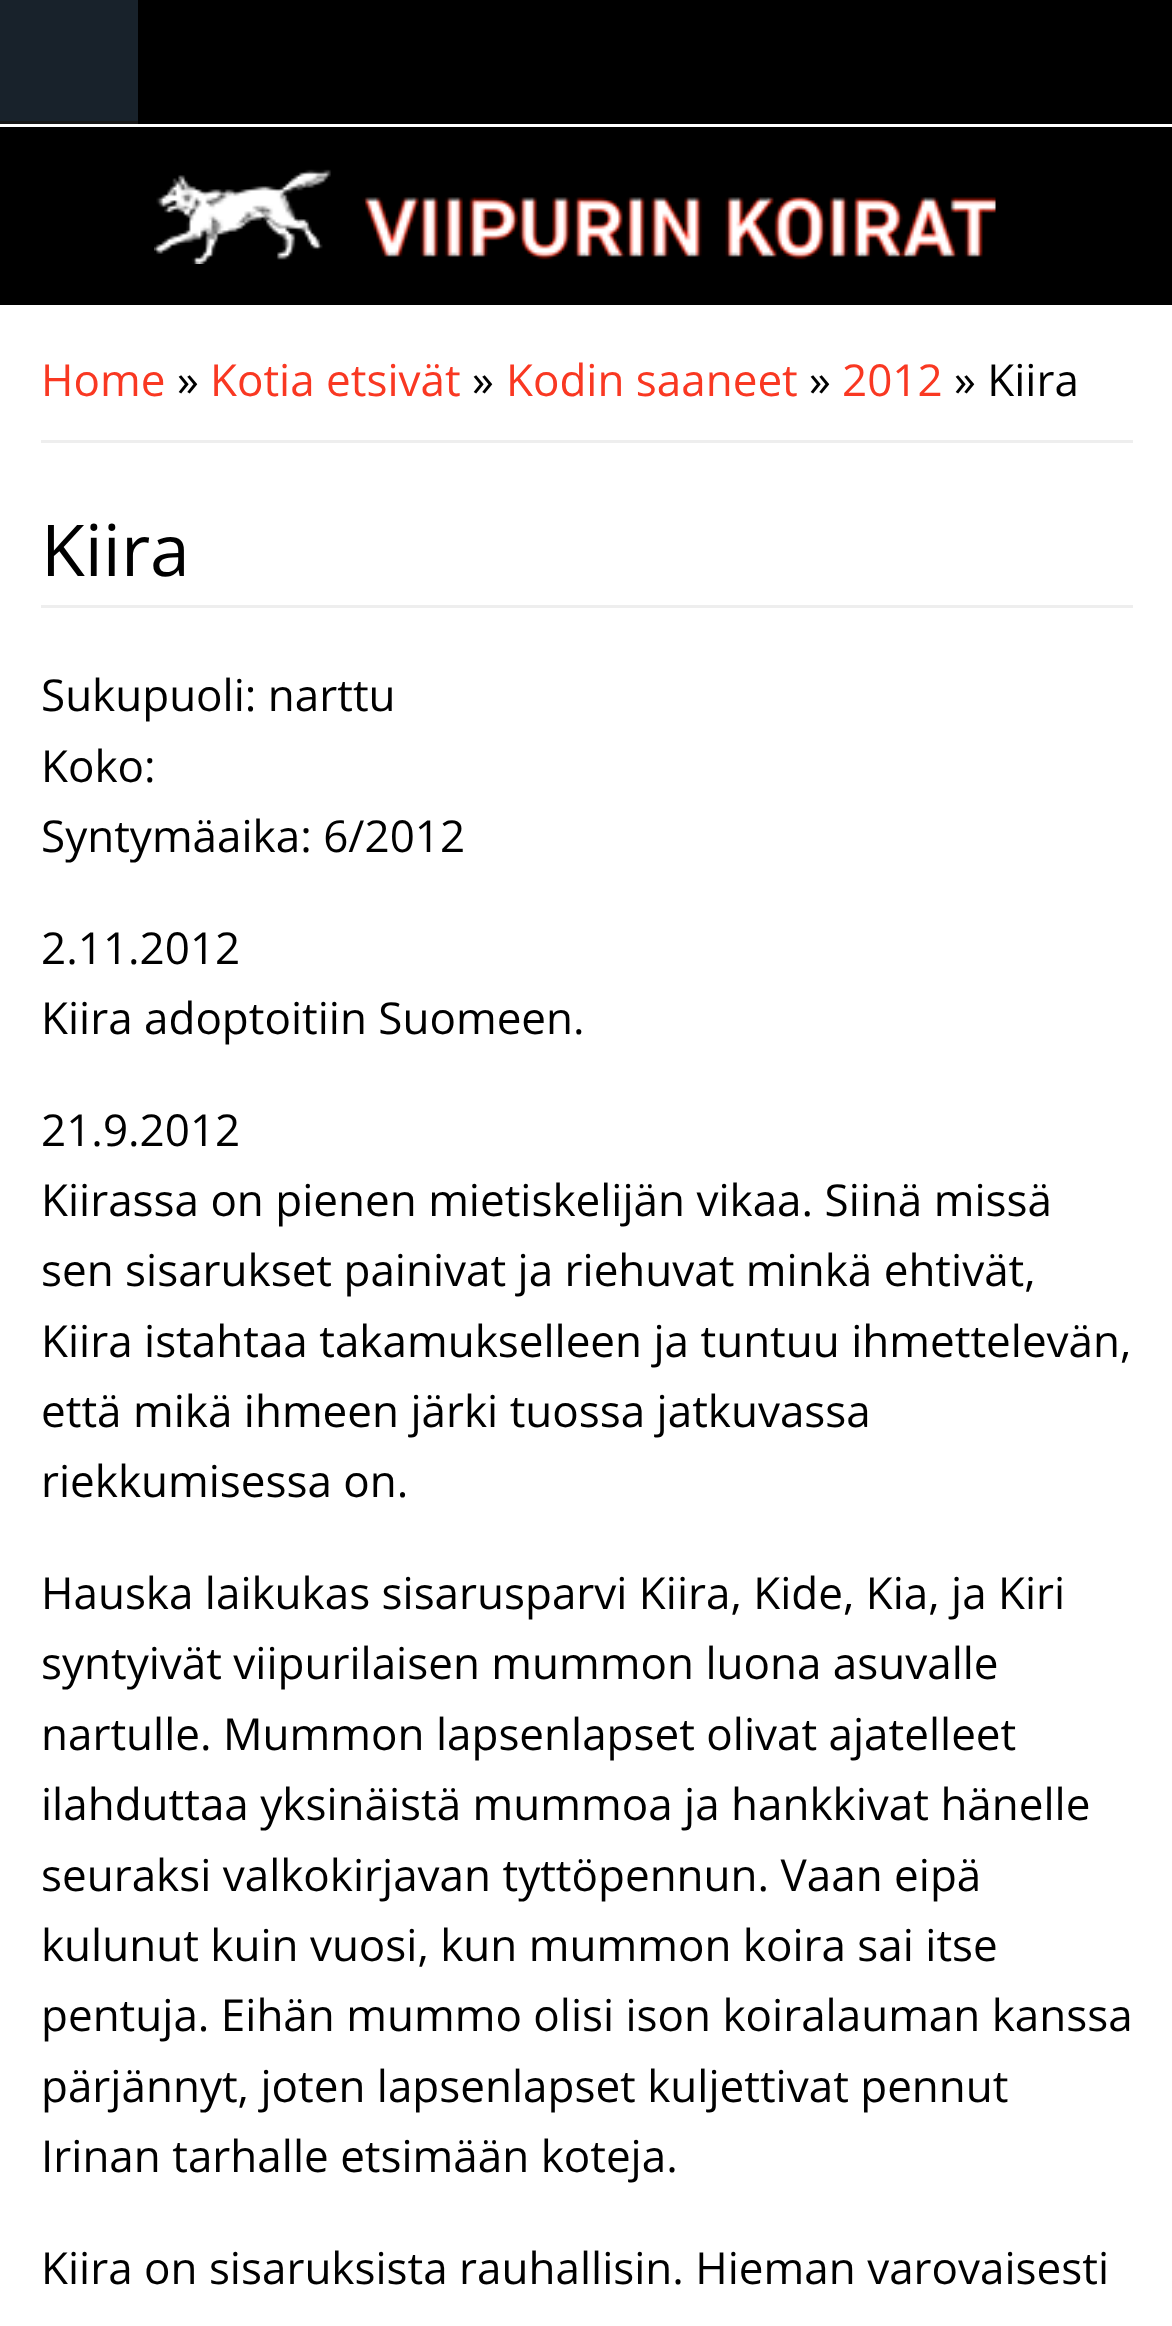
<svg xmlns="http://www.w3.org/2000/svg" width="1172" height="2326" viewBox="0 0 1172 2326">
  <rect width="100%" height="100%" fill="#fff"/>
  <path d="M0 127h1172v178H0z" fill="#000"/>
  <path d="M138 0h1034v124H138z" fill="#000"/>
  <path d="M0 0h138v121H0z" fill="#18222b"/>
  <path d="M0 121h138v3H0z" fill="#181818"/>
  <image x="154" y="169" width="842" height="95" href="img/1.png"/>
  <path d="M41 440h1092v3H41z" fill="#eee"/>
  <path d="M41 605h1092v3H41z" fill="#eee"/>
  <text x="41" y="396" font-family="Open Sans" font-size="44" fill="#f93822">Home</text>
  <text x="177" y="396" font-family="Open Sans" font-size="44" fill="#000">»</text>
  <text x="210" y="396" font-family="Open Sans" font-size="44" fill="#f93822">Kotia etsivät</text>
  <text x="472" y="396" font-family="Open Sans" font-size="44" fill="#000">»</text>
  <text x="506" y="396" font-family="Open Sans" font-size="44" fill="#f93822">Kodin saaneet</text>
  <text x="809" y="396" font-family="Open Sans" font-size="44" fill="#000">»</text>
  <text x="842" y="396" font-family="Open Sans" font-size="44" fill="#f93822">2012</text>
  <text x="954" y="396" font-family="Open Sans" font-size="44" fill="#000">» Kiira</text>
  <text x="41" y="576" font-family="Open Sans" font-size="71.5" fill="#000">Kiira</text>
  <g font-family="Open Sans" font-size="44" fill="#000">
    <text x="41" y="711">Sukupuoli: narttu</text>
    <text x="41" y="782">Koko:</text>
    <text x="41" y="852">Syntymäaika: 6/2012</text>
    <text x="41" y="964">2.11.2012</text>
    <text x="41" y="1034">Kiira adoptoitiin Suomeen.</text>
    <text x="41" y="1146">21.9.2012</text>
    <text x="41" y="1216">Kiirassa on pienen mietiskelijän vikaa. Siinä missä</text>
    <text x="41" y="1286">sen sisarukset painivat ja riehuvat minkä ehtivät,</text>
    <text x="41" y="1357">Kiira istahtaa takamukselleen ja tuntuu ihmettelevän,</text>
    <text x="41" y="1427">että mikä ihmeen järki tuossa jatkuvassa</text>
    <text x="41" y="1497">riekkumisessa on.</text>
    <text x="41" y="1609">Hauska laikukas sisarusparvi Kiira, Kide, Kia, ja Kiri</text>
    <text x="41" y="1679">syntyivät viipurilaisen mummon luona asuvalle</text>
    <text x="41" y="1750">nartulle. Mummon lapsenlapset olivat ajatelleet</text>
    <text x="41" y="1820">ilahduttaa yksinäistä mummoa ja hankkivat hänelle</text>
    <text x="41" y="1891">seuraksi valkokirjavan tyttöpennun. Vaan eipä</text>
    <text x="41" y="1961">kulunut kuin vuosi, kun mummon koira sai itse</text>
    <text x="41" y="2031">pentuja. Eihän mummo olisi ison koiralauman kanssa</text>
    <text x="41" y="2102">pärjännyt, joten lapsenlapset kuljettivat pennut</text>
    <text x="41" y="2172">Irinan tarhalle etsimään koteja.</text>
    <text x="41" y="2284">Kiira on sisaruksista rauhallisin. Hieman varovaisesti</text>
  </g>
</svg>
